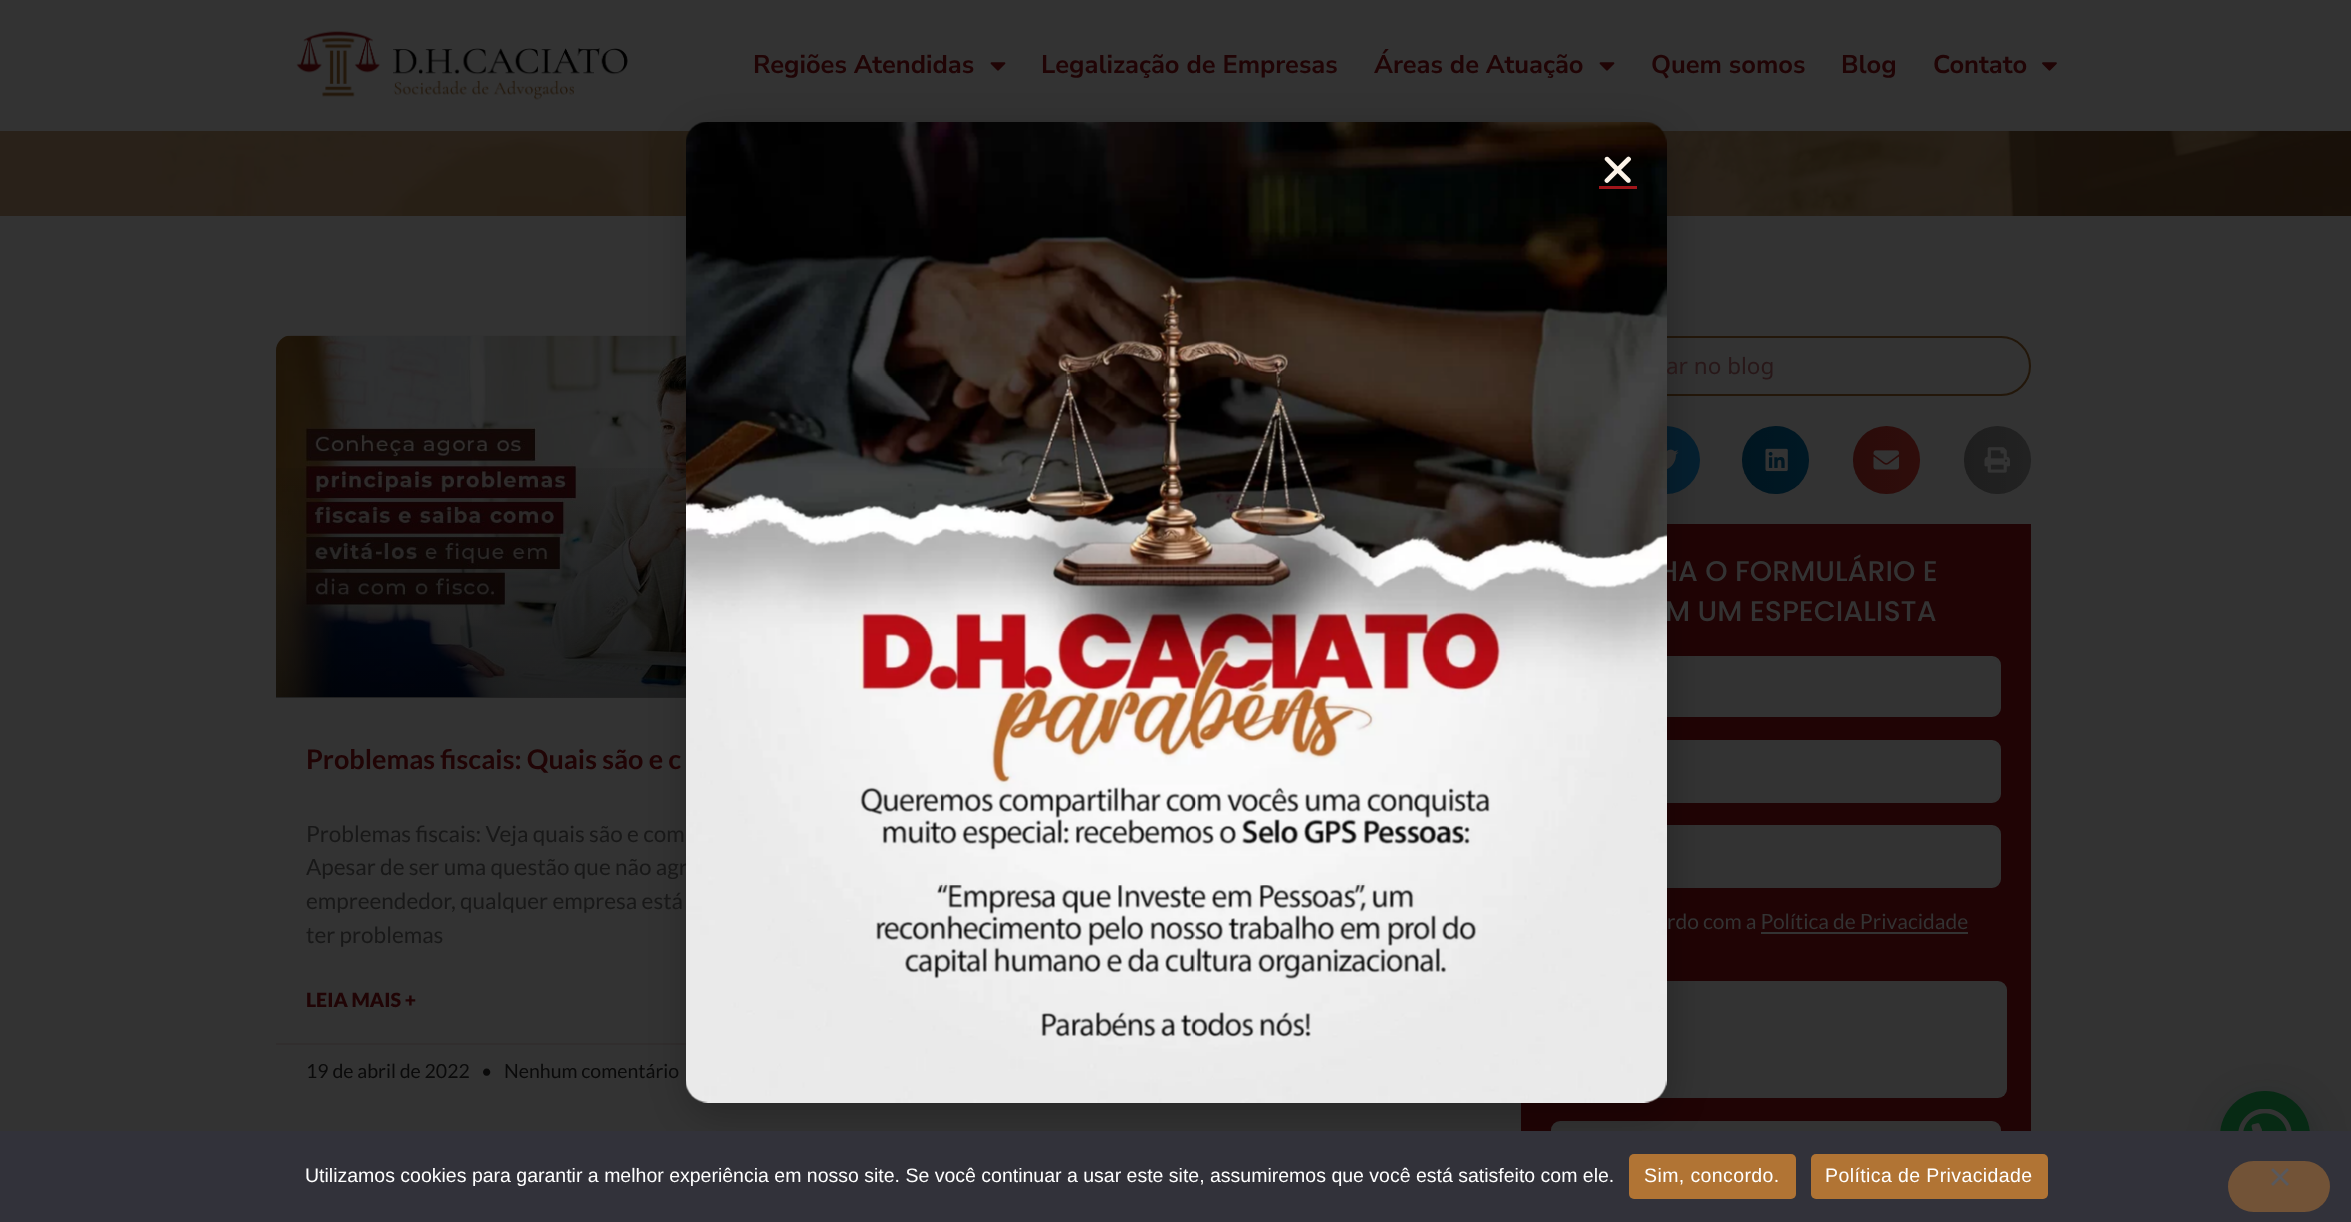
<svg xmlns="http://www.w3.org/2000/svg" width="2351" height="1222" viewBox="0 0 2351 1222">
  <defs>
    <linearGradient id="g1" gradientUnits="userSpaceOnUse" x1="565" y1="698" x2="565" y2="336"><stop offset="0" stop-color="#000" stop-opacity="0.35"/><stop offset="0.75" stop-color="#000" stop-opacity="0"/></linearGradient>
    <linearGradient id="g2" gradientUnits="userSpaceOnUse" x1="1632" y1="460" x2="1700" y2="460"><stop offset="0" stop-color="#000" stop-opacity="0.12"/><stop offset="1" stop-color="#000" stop-opacity="0"/></linearGradient>
    <linearGradient id="g3" gradientUnits="userSpaceOnUse" x1="1742" y1="460" x2="1809" y2="460"><stop offset="0" stop-color="#000" stop-opacity="0.12"/><stop offset="1" stop-color="#000" stop-opacity="0"/></linearGradient>
    <linearGradient id="g4" gradientUnits="userSpaceOnUse" x1="1853" y1="460" x2="1920" y2="460"><stop offset="0" stop-color="#000" stop-opacity="0.12"/><stop offset="1" stop-color="#000" stop-opacity="0"/></linearGradient>
    <linearGradient id="g5" gradientUnits="userSpaceOnUse" x1="1964" y1="460" x2="2031" y2="460"><stop offset="0" stop-color="#000" stop-opacity="0.12"/><stop offset="1" stop-color="#000" stop-opacity="0"/></linearGradient>
  </defs>
  <rect width="100%" height="100%" fill="#333"/>
  <path d="M0 131h101v85H0z" fill="#292119"/>
  <image x="296" y="31" width="332" height="69" href="img/1.png"/>
  <image x="990" y="62" width="16" height="9" href="img/2.png"/>
  <image x="1599" y="62" width="16" height="9" href="img/2.png"/>
  <image x="2042" y="62" width="15" height="9" href="img/3.png"/>
  <image x="101" y="131" width="2250" height="85" href="img/6.png"/>
  <image x="276" y="335" width="410" height="362" href="img/7.png"/>
  <path d="M276 468h410v230H276z" fill="url(#g1)"/>
  <path d="M276 1043h410v2H276z" fill="#312e2e"/>
  <rect x="1522" y="337" width="508" height="58" rx="29" fill="none" stroke="#23170a" stroke-width="2"/>
  <circle cx="1666" cy="460" r="34" fill="#062030"/>
  <path d="M1667 426h3v68H1667z" fill="url(#g2)"/>
  <image x="1667" y="449" width="12" height="20" href="img/8.png"/>
  <path d="M1521 524h510v607H1521z" fill="#200405"/>
  <rect x="1552" y="657" width="448" height="59" rx="8" fill="#333" stroke="#333" stroke-width="2"/>
  <rect x="1552" y="741" width="448" height="61" rx="8" fill="#333" stroke="#333" stroke-width="2"/>
  <rect x="1552" y="826" width="448" height="61" rx="8" fill="#333" stroke="#333" stroke-width="2"/>
  <rect x="1551" y="981" width="456" height="117" rx="9" fill="#333"/>
  <rect x="1551" y="1121" width="450" height="67" rx="9" fill="#333"/>
  <rect x="684" y="129" width="990" height="990" rx="35" fill="#00000033" filter="blur(17px)"/>
  <rect x="1742" y="426" width="67" height="68" rx="33.5" fill="#001824"/>
  <rect x="1742" y="426" width="67" height="68" rx="33.5" fill="url(#g3)"/>
  <image x="1765" y="448" width="23" height="24" href="img/9.png"/>
  <rect x="1853" y="426" width="67" height="68" rx="33.5" fill="#2f0d0b"/>
  <rect x="1853" y="426" width="67" height="68" rx="33.5" fill="url(#g4)"/>
  <image x="1873" y="450" width="26" height="20" href="img/10.png"/>
  <rect x="1964" y="426" width="67" height="68" rx="33.5" fill="#222"/>
  <rect x="1964" y="426" width="67" height="68" rx="33.5" fill="url(#g5)"/>
  <image x="1984" y="447" width="26" height="26" href="img/11.png"/>
  <path d="M1761 932h207v2H1761z" fill="#333"/>
  <rect x="2222" y="1100" width="90" height="90" rx="45" fill="#0113113d" filter="blur(18px)"/>
  <circle cx="2265" cy="1136" r="45" fill="#072a14"/>
  <path d="M0 1131h2351v91H0z" fill="#32323a"/>
  <rect x="1629" y="1154" width="167" height="45" rx="5" fill="#b17434"/>
  <rect x="1811" y="1154" width="237" height="45" rx="5" fill="#b17434"/>
  <rect x="2228" y="1161" width="102" height="51" rx="25.5" fill="#725337"/>
  <path d="M2287 1168L2289 1170L2273 1186L2271 1184Z" fill="#59595d"/>
  <path d="M2271 1170L2273 1168L2289 1184L2287 1186Z" fill="#59595d"/>
  <image x="2238" y="1109" width="54" height="22" href="img/12.png"/>
  <g font-family="Nunito Sans" font-size="25.5" font-weight="bold" fill="#200405">
    <text x="753" y="73">Regiões Atendidas</text>
    <text x="1041" y="73">Legalização de Empresas</text>
    <text x="1374" y="73">Áreas de Atuação</text>
    <text x="1651" y="73">Quem somos</text>
    <text x="1841" y="73">Blog</text>
    <text x="1933" y="73">Contato</text>
  </g>
  <text x="306" y="769" font-family="Lato" font-size="27" font-weight="bold" fill="#200405">Problemas fiscais: Quais são e c</text>
  <g font-family="Lato" font-size="22.5" fill="#181818">
    <text x="306" y="842">Problemas fiscais: Veja quais são e com</text>
    <text x="306" y="875">Apesar de ser uma questão que não agr</text>
    <text x="306" y="909">empreendedor, qualquer empresa está</text>
    <text x="306" y="943">ter problemas</text>
  </g>
  <text x="306" y="1007" font-family="Lato" font-size="19.5" font-weight="900" fill="#200405">LEIA MAIS +</text>
  <g font-family="Lato" font-size="19.5" fill="#0a0a0a">
    <text x="306" y="1078">19 de abril de 2022</text>
    <text x="481" y="1078">•</text>
    <text x="504" y="1078">Nenhum comentário</text>
  </g>
  <text x="1666" y="374" font-family="Noto Sans" font-size="22.5" fill="#281718">ar no blog</text>
  <text x="1658" y="581" font-family="Poppins" font-size="28.5" font-weight="500" fill="#333">HA O FORMULÁRIO E</text>
  <image x="686" y="122" width="981" height="981" href="img/4.png"/>
  <image x="1604" y="156" width="28" height="27" href="img/5.png"/>
  <path d="M1599 186h38v3H1599z" fill="#a0151a"/>
  <text x="1665" y="621" font-family="Poppins" font-size="28.5" font-weight="500" fill="#333">M UM ESPECIALISTA</text>
  <text x="1667" y="929" font-family="Lato" font-size="21" fill="#333">rdo com a Política de Privacidade</text>
  <text x="305" y="1182" font-family="Liberation Sans" font-size="19.5" fill="#fff">Utilizamos cookies para garantir a melhor experiência em nosso site. Se você continuar a usar este site, assumiremos que você está satisfeito com ele.</text>
  <g font-family="Liberation Sans" font-size="19.5" letter-spacing="0.4" fill="#fff">
    <text x="1644" y="1182">Sim, concordo.</text>
    <text x="1825" y="1182">Política de Privacidade</text>
  </g>
</svg>
